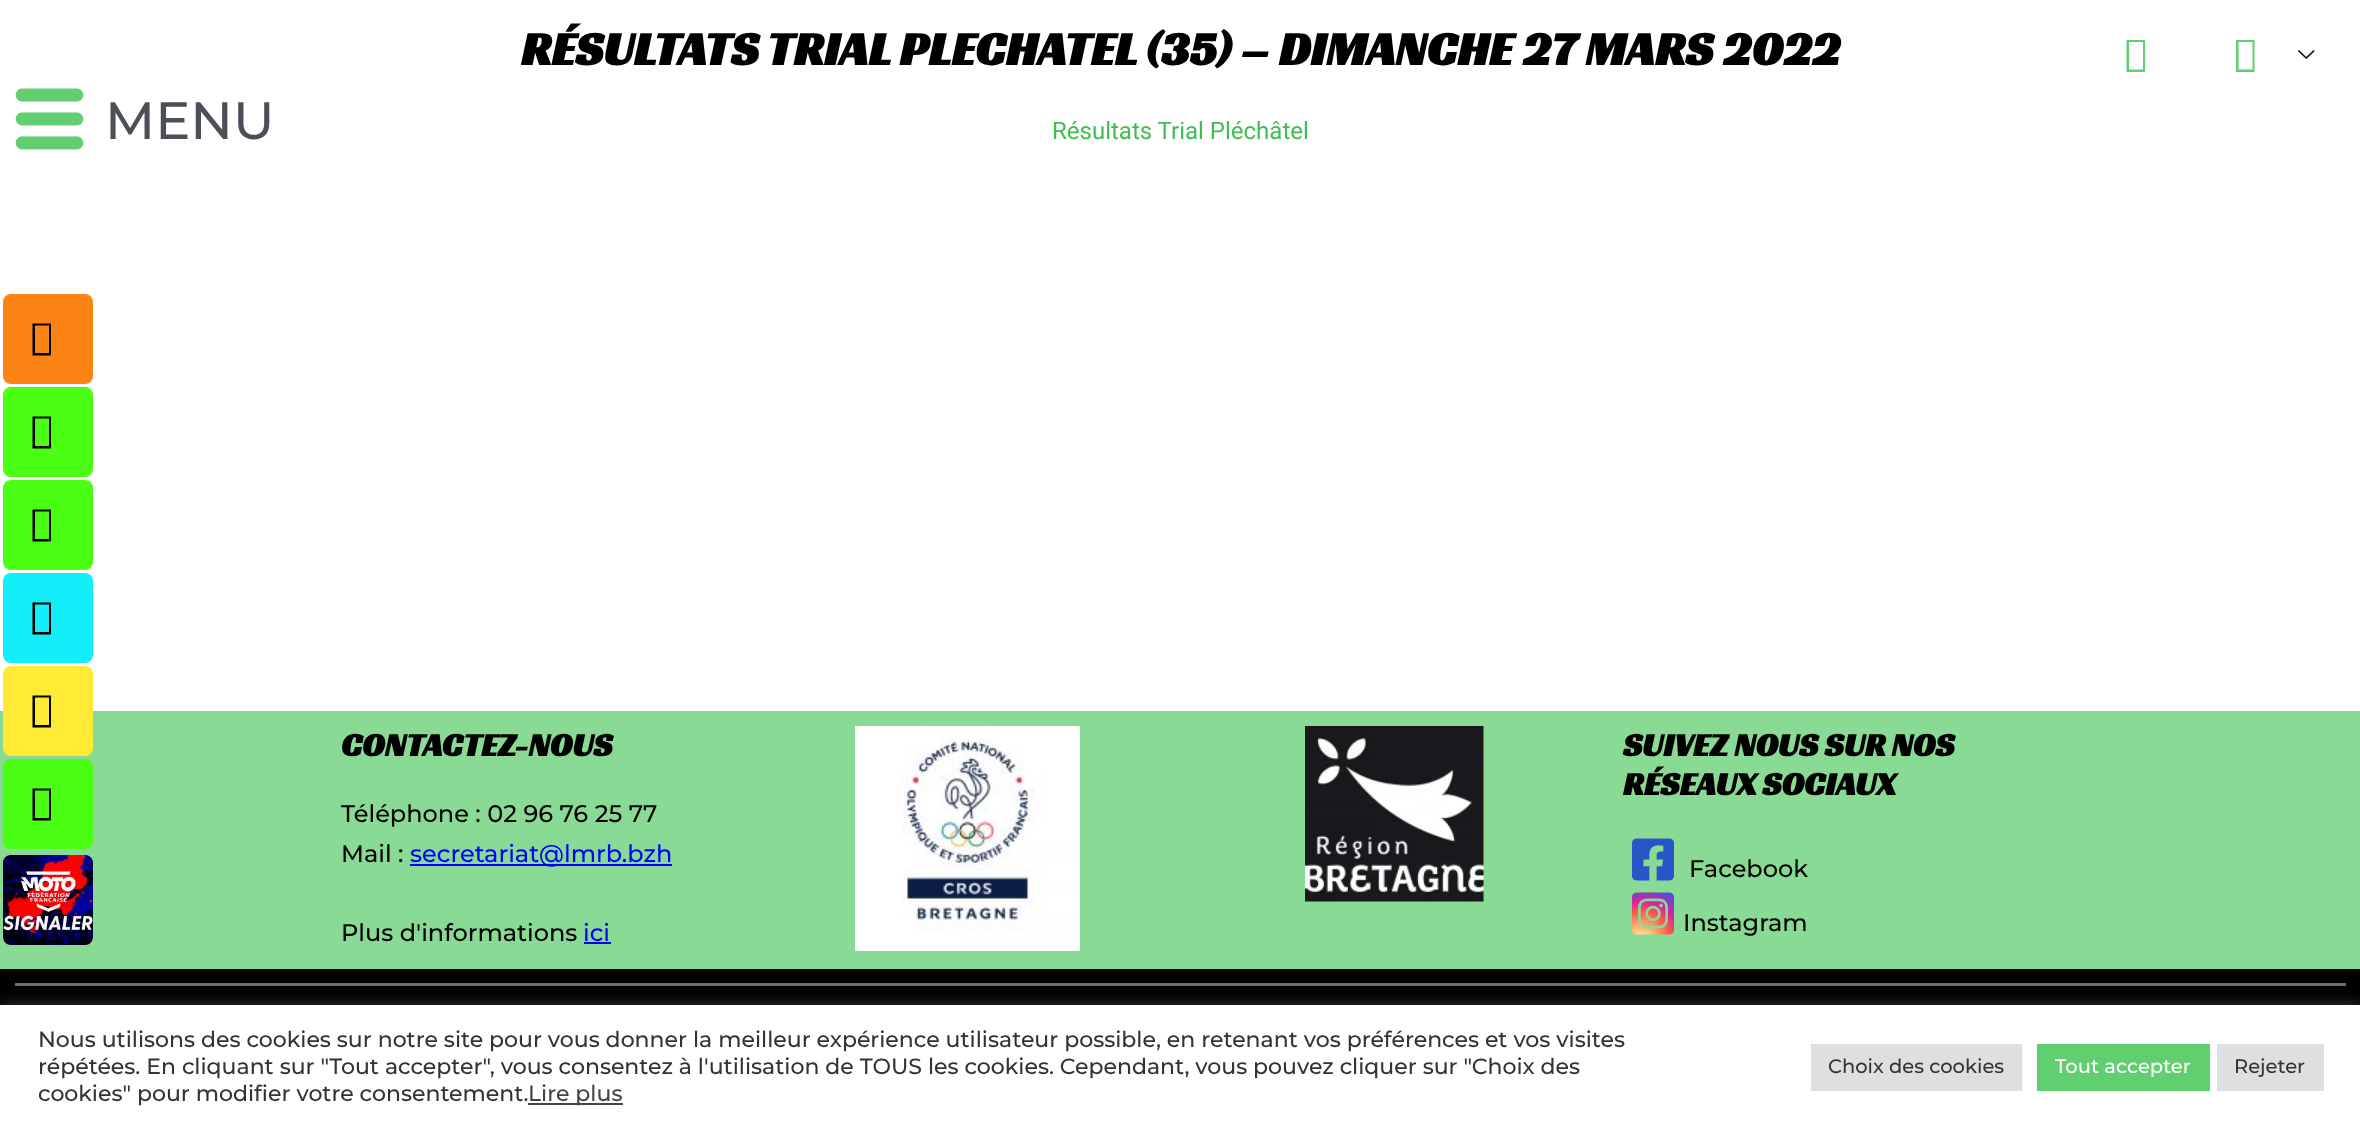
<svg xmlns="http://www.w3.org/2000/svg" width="2360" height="1128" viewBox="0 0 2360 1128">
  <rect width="100%" height="100%" fill="#fff"/>
  <rect x="3" y="294" width="90" height="90" rx="8" fill="#fc8414"/>
  <path d="M32.5 355.5V323.5H51V355.5ZM35 353H49V325.5H35Z" fill="#000"/>
  <rect x="3" y="387" width="90" height="90" rx="8" fill="#4bff14"/>
  <path d="M32.5 448.5V416.5H51V448.5ZM35 446H49V418.5H35Z" fill="#000"/>
  <rect x="3" y="480" width="90" height="90" rx="8" fill="#4bff14"/>
  <path d="M32.5 541.5V509.5H51V541.5ZM35 539H49V511.5H35Z" fill="#000"/>
  <rect x="3" y="573" width="90" height="90" rx="8" fill="#13eef9"/>
  <path d="M32.5 634.5V602.5H51V634.5ZM35 632H49V604.5H35Z" fill="#000"/>
  <path d="M0 711h2360v258H0z" fill="#89da94"/>
  <rect x="3" y="666" width="90" height="90" rx="8" fill="#ffea35"/>
  <path d="M32.5 727.5V695.5H51V727.5ZM35 725H49V697.5H35Z" fill="#000"/>
  <rect x="3" y="759" width="90" height="90" rx="8" fill="#4bff14"/>
  <path d="M32.5 820.5V788.5H51V820.5ZM35 818H49V790.5H35Z" fill="#000"/>
  <path d="M2126.5 72V40H2145V72ZM2129 69.5H2143V42H2129Z" fill="#61ce70"/>
  <path d="M2236 72V40H2254.5V72ZM2238.5 69.5H2252.5V42H2238.5Z" fill="#61ce70"/>
  <image x="2298" y="50" width="17" height="9" href="img/1.png"/>
  <image x="15" y="88" width="69" height="62" href="img/2.png"/>
  <path d="M410 864h262v2H410z" fill="#00f"/>
  <path d="M584 942h27v2H584z" fill="#00f"/>
  <image x="855" y="726" width="225" height="225" href="img/3.png"/>
  <image x="1305" y="726" width="179" height="176" href="img/4.png"/>
  <image x="1632" y="838" width="42" height="43" href="img/5.png"/>
  <image x="1632" y="892" width="42" height="43" href="img/6.png"/>
  <path d="M0 969h2360v36H0z" fill="#000"/>
  <path d="M15 983h2331v3H15z" fill="#716c6c"/>
  <rect x="3" y="855" width="90" height="90" rx="8" fill="#ff1414"/>
  <image x="3" y="855" width="90" height="90" href="img/7.png"/>
  <path d="M0 1004h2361v123H0z" fill="#acabab4d" filter="blur(7.5px)"/>
  <path d="M0 1005h2360v123H0z" fill="#fff"/>
  <path d="M528 1103h95v2H528z" fill="#444"/>
  <path d="M1811 1044h211v47H1811z" fill="#dedfe0"/>
  <path d="M2037 1044h173v47H2037z" fill="#61ce70"/>
  <path d="M2217 1044h107v47H2217z" fill="#dedfe0"/>
  <text x="105" y="139" font-family="Montserrat" font-size="52.5" font-weight="100" fill="#4b4f58">MENU</text>
  <text x="521" y="65" font-family="Racing Sans One" font-size="48" font-weight="bold" fill="#000">RÉSULTATS TRIAL PLECHATEL (35) – DIMANCHE 27 MARS 2022</text>
  <text x="1052" y="139" font-family="Roboto" font-size="24" fill="#42bd52">Résultats Trial Pléchâtel</text>
  <text x="341" y="756" font-family="Racing Sans One" font-size="33" font-weight="bold" fill="#000">CONTACTEZ-NOUS</text>
  <g font-family="Montserrat" font-size="24" font-weight="100" fill="#000">
    <text x="341" y="822">Téléphone : 02 96 76 25 77</text>
    <text x="341" y="862">Mail :</text>
  </g>
  <text x="410" y="862" font-family="Montserrat" font-size="24" font-weight="100" fill="#00f">secretariat@lmrb.bzh</text>
  <text x="341" y="941" font-family="Montserrat" font-size="24" font-weight="100" fill="#000">Plus d'informations</text>
  <text x="583" y="941" font-family="Montserrat" font-size="24" font-weight="100" fill="#00f">ici</text>
  <g font-family="Racing Sans One" font-size="33" font-weight="bold" fill="#000">
    <text x="1623" y="756">SUIVEZ NOUS SUR NOS</text>
    <text x="1623" y="795">RÉSEAUX SOCIAUX</text>
  </g>
  <g font-family="Montserrat" font-size="24" font-weight="100" fill="#000">
    <text x="1689" y="877">Facebook</text>
    <text x="1683" y="931">Instagram</text>
  </g>
  <g font-family="Montserrat" font-size="22" font-weight="100" fill="#333">
    <text x="38" y="1047">Nous utilisons des cookies sur notre site pour vous donner la meilleur expérience utilisateur possible, en retenant vos préférences et vos visites</text>
    <text x="38" y="1074">répétées. En cliquant sur "Tout accepter", vous consentez à l'utilisation de TOUS les cookies. Cependant, vous pouvez cliquer sur "Choix des</text>
    <text x="38" y="1101">cookies" pour modifier votre consentement.</text>
  </g>
  <text x="528" y="1101" font-family="Montserrat" font-size="22" font-weight="100" fill="#444">Lire plus</text>
  <text x="1828" y="1073" font-family="Montserrat" font-size="19.5" font-weight="100" fill="#333">Choix des cookies</text>
  <text x="2055" y="1073" font-family="Montserrat" font-size="19.5" font-weight="100" fill="#fff">Tout accepter</text>
  <text x="2234" y="1073" font-family="Montserrat" font-size="19.5" font-weight="100" fill="#333">Rejeter</text>
</svg>
